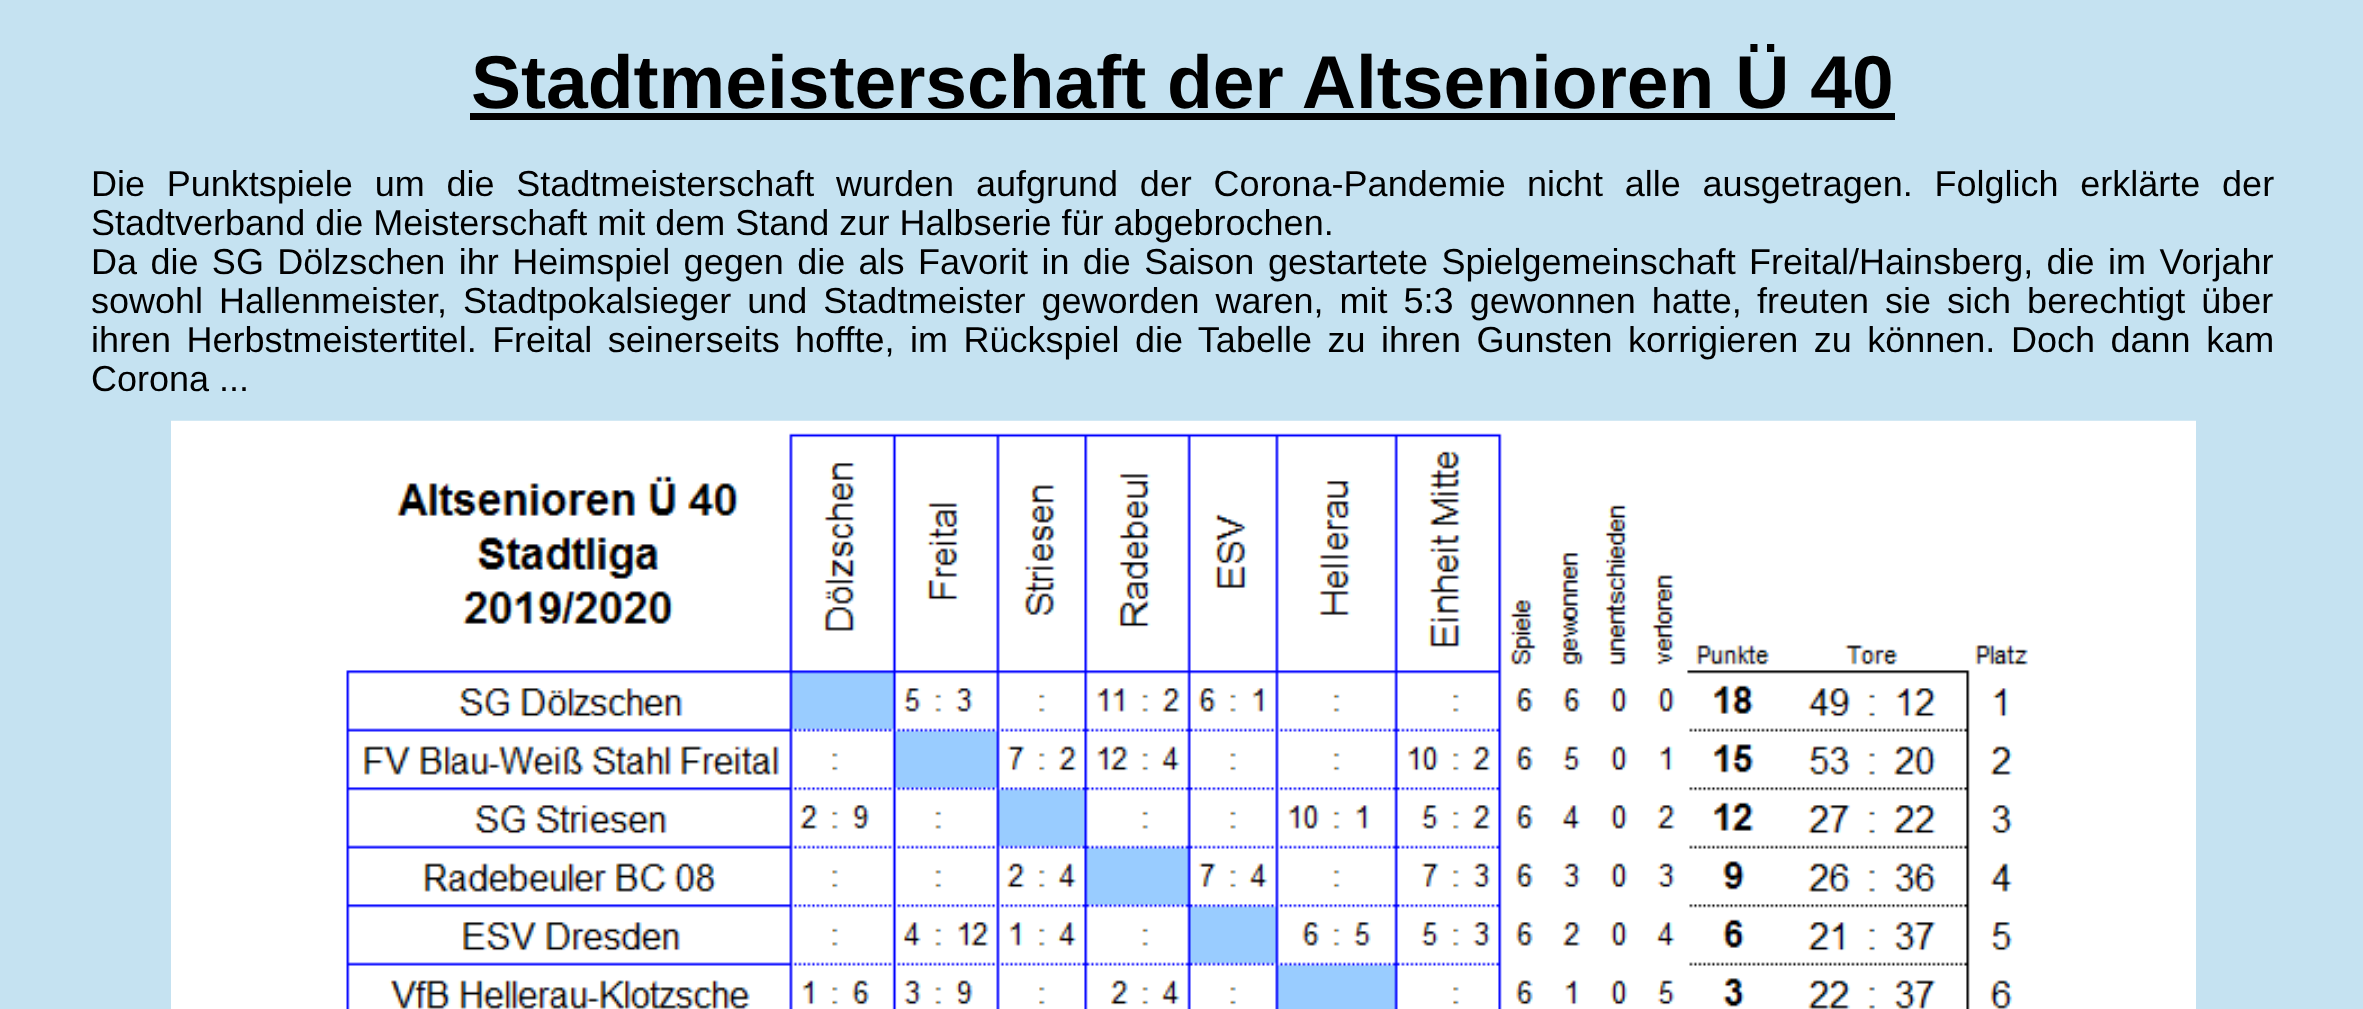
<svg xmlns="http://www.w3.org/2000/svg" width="2363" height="1009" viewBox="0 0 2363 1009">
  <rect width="100%" height="100%" fill="#c5e2f1"/>
  <path d="M470 113h1425v7H470z" fill="#000"/>
  <image x="171" y="420" width="2025" height="589" href="img/1.png"/>
  <text x="471" y="108" font-family="Liberation Sans" font-size="75" font-weight="bold" fill="#000">Stadtmeisterschaft der Altsenioren Ü 40</text>
  <g font-family="Liberation Sans" font-size="36" fill="#000">
    <text x="91" y="196" word-spacing="11.75">Die Punktspiele um die Stadtmeisterschaft wurden aufgrund der Corona-Pandemie</text>
    <text x="1527" y="196" word-spacing="11.75">nicht alle ausgetragen. Folglich erklärte der</text>
    <text x="91" y="235">Stadtverband die Meisterschaft mit dem Stand zur Halbserie für abgebrochen.</text>
    <text x="91" y="274" word-spacing="3.4">Da die SG Dölzschen ihr Heimspiel gegen die als Favorit in die Saison</text>
    <text x="1268" y="274" word-spacing="3.4">gestartete Spielgemeinschaft Freital/Hainsberg, die im Vorjahr</text>
    <text x="91" y="313">sowohl</text>
    <text x="219" y="313" word-spacing="6">Hallenmeister, Stadtpokalsieger und Stadtmeister geworden waren, mit 5:3 gewonnen hatte,</text>
    <text x="1757" y="313" word-spacing="6">freuten sie sich berechtigt über</text>
    <text x="91" y="352" word-spacing="5.5">ihren Herbstmeistertitel. Freital seinerseits</text>
    <text x="795" y="352" word-spacing="5.5">hoffte, im Rückspiel die Tabelle zu ihren Gunsten korrigieren zu können.</text>
    <text x="2011" y="352" word-spacing="5.5">Doch dann kam</text>
    <text x="91" y="391">Corona ...</text>
  </g>
</svg>
